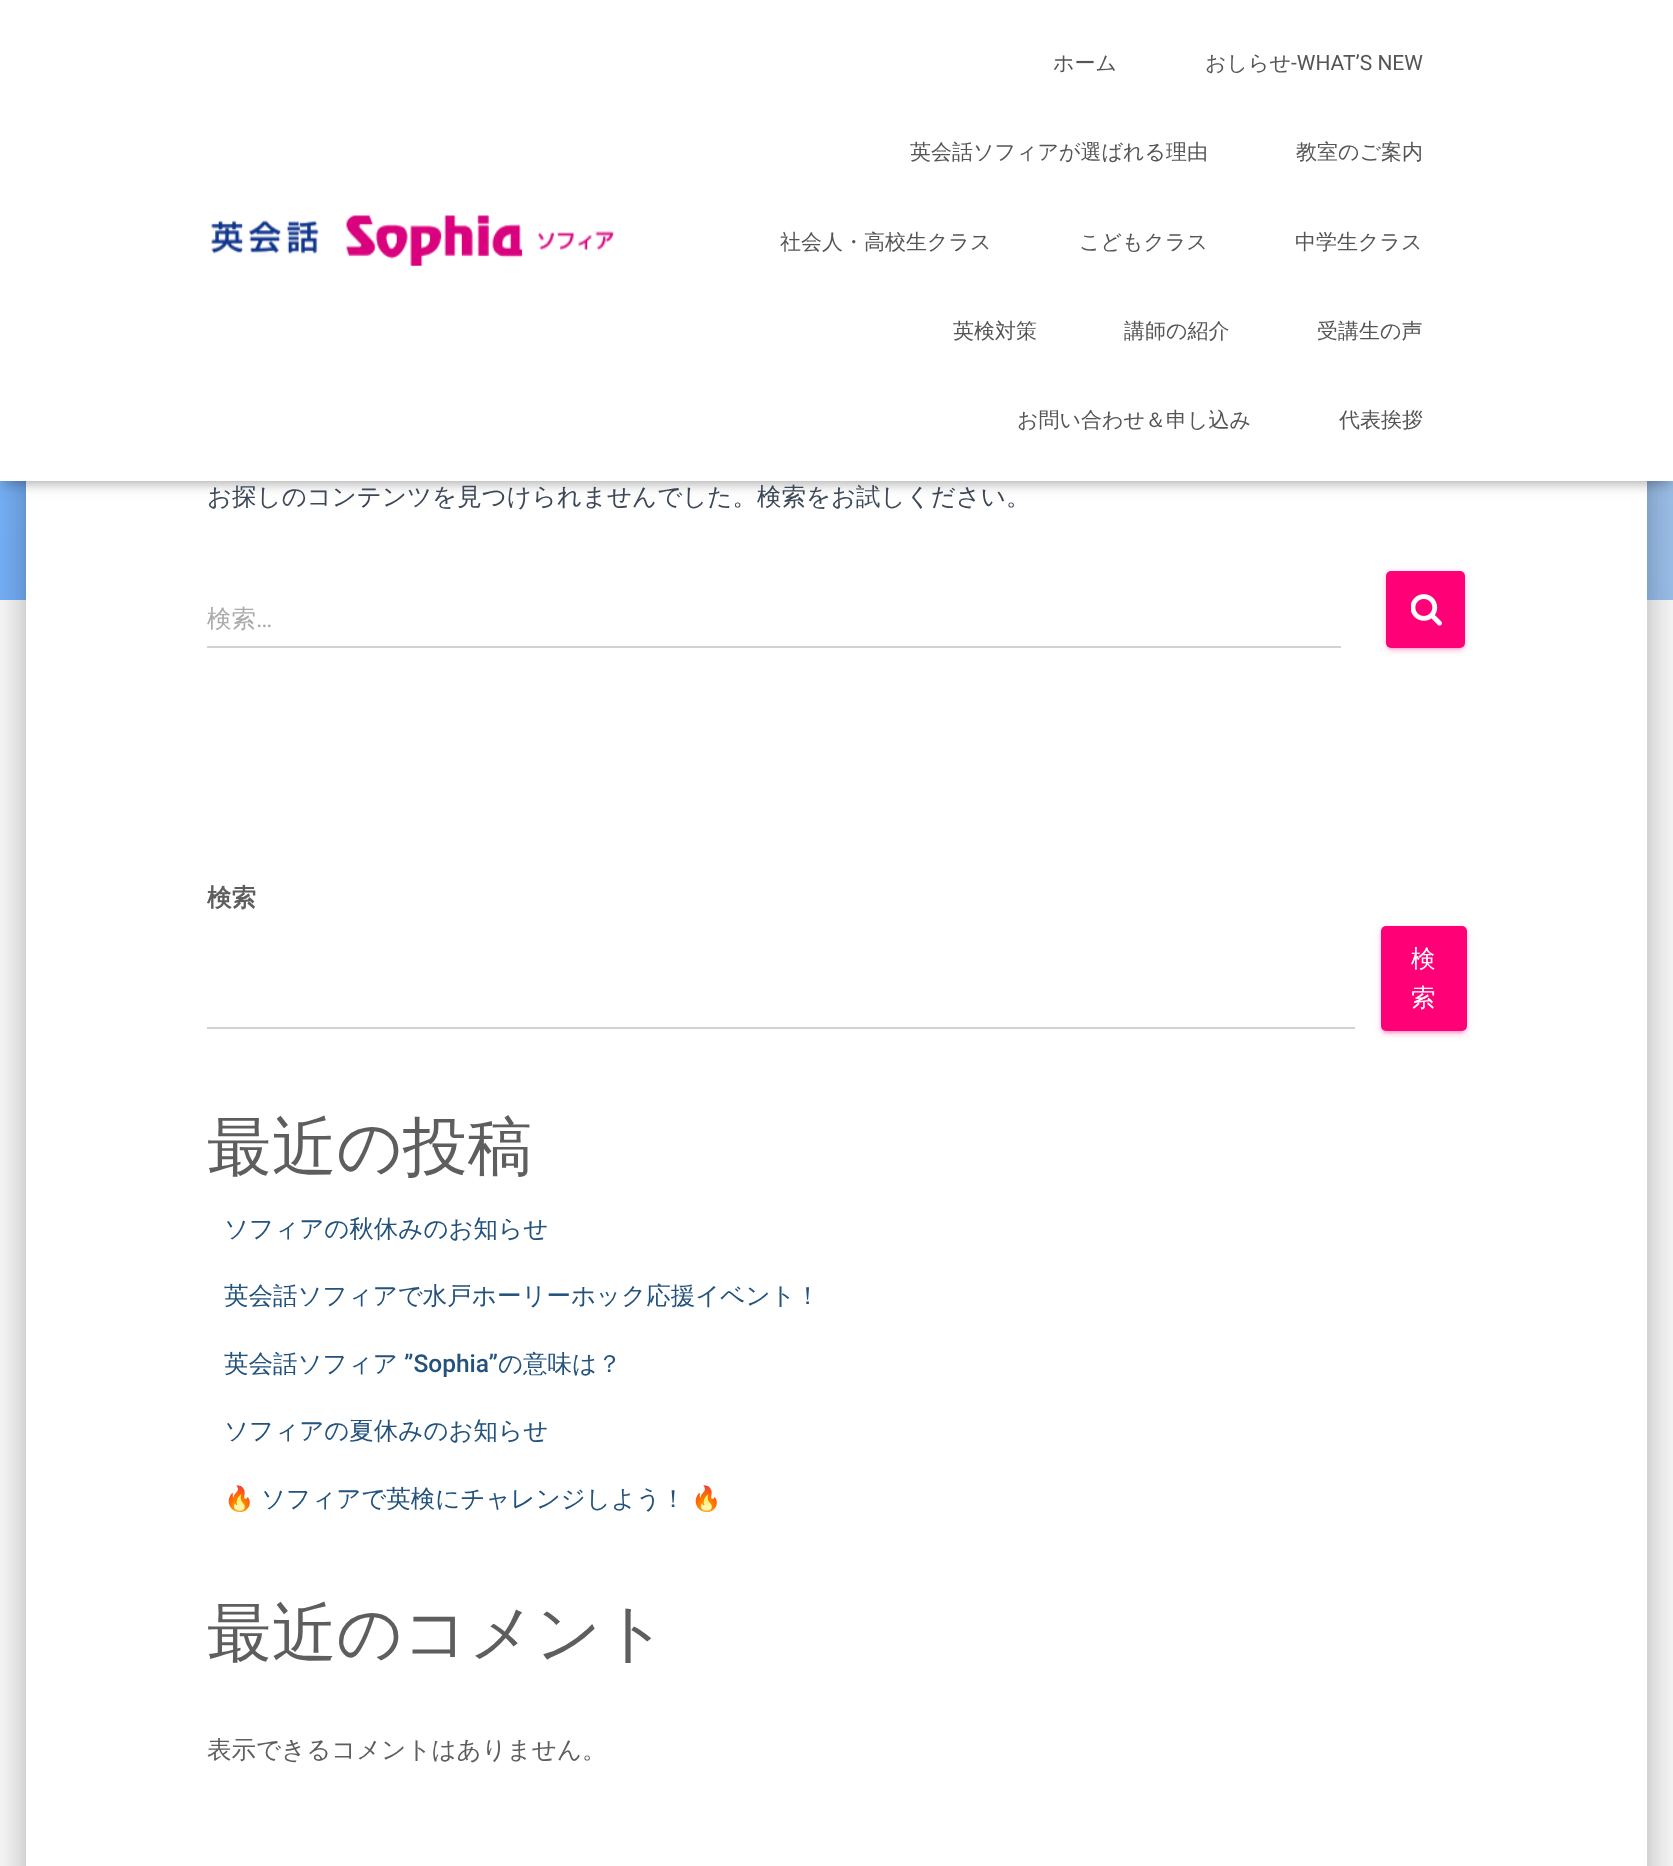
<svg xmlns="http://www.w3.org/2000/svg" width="1673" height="1866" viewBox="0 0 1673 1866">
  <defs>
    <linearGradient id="g1" gradientUnits="userSpaceOnUse" x1="141" y1="742" x2="1532" y2="-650"><stop offset="0" stop-color="#78b5ff"/><stop offset="1" stop-color="#bad1ea"/></linearGradient>
  </defs>
  <rect width="100%" height="100%" fill="#fff"/>
  <path d="M0 481h1673v119H0z" fill="url(#g1)"/>
  <rect x="35" y="264" width="1603" height="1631" rx="2" fill="#00000033" filter="blur(9px)"/>
  <rect x="18" y="243" width="1638" height="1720" rx="19" fill="#0000001f" filter="blur(26px)"/>
  <rect x="23" y="266" width="1627" height="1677" rx="14" fill="#00000024" filter="blur(21px)"/>
  <path d="M26 481h1621v1385H26z" fill="#fff"/>
  <path d="M4 11h1666v474H4z" fill="#0000001a" filter="blur(4.5px)"/>
  <path d="M0 2h1673v481H0z" fill="#0000001f" filter="blur(9px)"/>
  <path d="M11 12h1652v461H11z" fill="#0000006b" filter="blur(9px)"/>
  <path d="M0 0h1673v481H0z" fill="#fff"/>
  <image x="211" y="215" width="404" height="51" href="img/1.png"/>
  <path d="M207 646h1134v2H207z" fill="#d2d2d2"/>
  <rect x="1386" y="572" width="79" height="77" rx="5" fill="#ff00771f" filter="blur(4.5px)"/>
  <rect x="1390" y="579" width="71" height="70" rx="2" fill="#ff007733" filter="blur(1px)"/>
  <rect x="1386" y="574" width="79" height="77" rx="5" fill="#ff007724" filter="blur(2px)"/>
  <rect x="1386" y="571" width="79" height="77" rx="5" fill="#f07"/>
  <image x="1411" y="594" width="31" height="32" href="img/2.png"/>
  <rect x="1381" y="928" width="86" height="105" rx="5" fill="#ff00771f" filter="blur(4.5px)"/>
  <rect x="1384" y="935" width="79" height="98" rx="2" fill="#ff007733" filter="blur(1px)"/>
  <rect x="1381" y="929" width="86" height="105" rx="5" fill="#ff007724" filter="blur(2px)"/>
  <rect x="1381" y="926" width="86" height="105" rx="5" fill="#f07"/>
  <path d="M207 1027h1148v2H207z" fill="#d2d2d2"/>
  <g font-family="WenQuanYi Zen Hei" font-size="21" font-weight="500" fill="#555">
    <text x="1053" y="70">ホーム</text>
    <text x="1205" y="70">おしらせ</text>
  </g>
  <text x="1291" y="70" font-family="Roboto" font-size="21" fill="#555">-WHAT’S NEW</text>
  <g font-family="WenQuanYi Zen Hei" font-size="21" font-weight="500" fill="#555">
    <text x="910" y="159">英会話ソフィアが選ばれる理由</text>
    <text x="1296" y="159">教室のご案内</text>
    <text x="780" y="249">社会人・高校生クラス</text>
    <text x="1079" y="249">こどもクラス</text>
    <text x="1295" y="249">中学生クラス</text>
    <text x="953" y="338">英検対策</text>
    <text x="1124" y="338">講師の紹介</text>
    <text x="1317" y="338">受講生の声</text>
    <text x="1017" y="427">お問い合わせ＆申し込み</text>
    <text x="1339" y="427">代表挨拶</text>
  </g>
  <text x="207" y="505" font-family="WenQuanYi Zen Hei" font-size="24.5" font-weight="500" fill="#3c4858">お探しのコンテンツを見つけられませんでした。検索をお試しください。</text>
  <text x="207" y="627" font-family="WenQuanYi Zen Hei" font-size="24.5" font-weight="500" fill="#aaa">検索</text>
  <text x="256" y="627" font-family="Roboto" font-size="24.5" fill="#aaa">…</text>
  <text x="207" y="906" font-family="WenQuanYi Zen Hei" font-size="24.5" font-weight="bold" fill="#5e5e5e">検索</text>
  <g font-family="WenQuanYi Zen Hei" font-size="24.5" font-weight="500" fill="#fff">
    <text x="1411" y="967">検</text>
    <text x="1411" y="1006">索</text>
  </g>
  <text x="207" y="1169" font-family="WenQuanYi Zen Hei" font-size="64.75" font-weight="500" fill="#5e5e5e">最近の投稿</text>
  <g font-family="WenQuanYi Zen Hei" font-size="24.5" font-weight="500" fill="#23527c">
    <text x="224" y="1237">ソフィアの秋休みのお知らせ</text>
    <text x="224" y="1304">英会話ソフィアで水戸ホーリーホック応援イベント！</text>
    <text x="224" y="1372">英会話ソフィア</text>
  </g>
  <text x="404" y="1372" font-family="Roboto" font-size="24.5" font-weight="500" fill="#23527c">”Sophia”</text>
  <g font-family="WenQuanYi Zen Hei" font-size="24.5" font-weight="500" fill="#23527c">
    <text x="498" y="1372">の意味は？</text>
    <text x="224" y="1439">ソフィアの夏休みのお知らせ</text>
  </g>
  <text x="224" y="1507" font-family="Noto Color Emoji" font-size="24.5" fill="#23527c">🔥</text>
  <text x="261" y="1507" font-family="WenQuanYi Zen Hei" font-size="24.5" font-weight="500" fill="#23527c">ソフィアで英検にチャレンジしよう！</text>
  <text x="691" y="1507" font-family="Noto Color Emoji" font-size="24.5" fill="#23527c">🔥</text>
  <text x="207" y="1655" font-family="WenQuanYi Zen Hei" font-size="64.75" font-weight="500" fill="#5e5e5e">最近のコメント</text>
  <text x="207" y="1758" font-family="WenQuanYi Zen Hei" font-size="24.5" font-weight="500" fill="#5e5e5e">表示できるコメントはありません。</text>
</svg>
